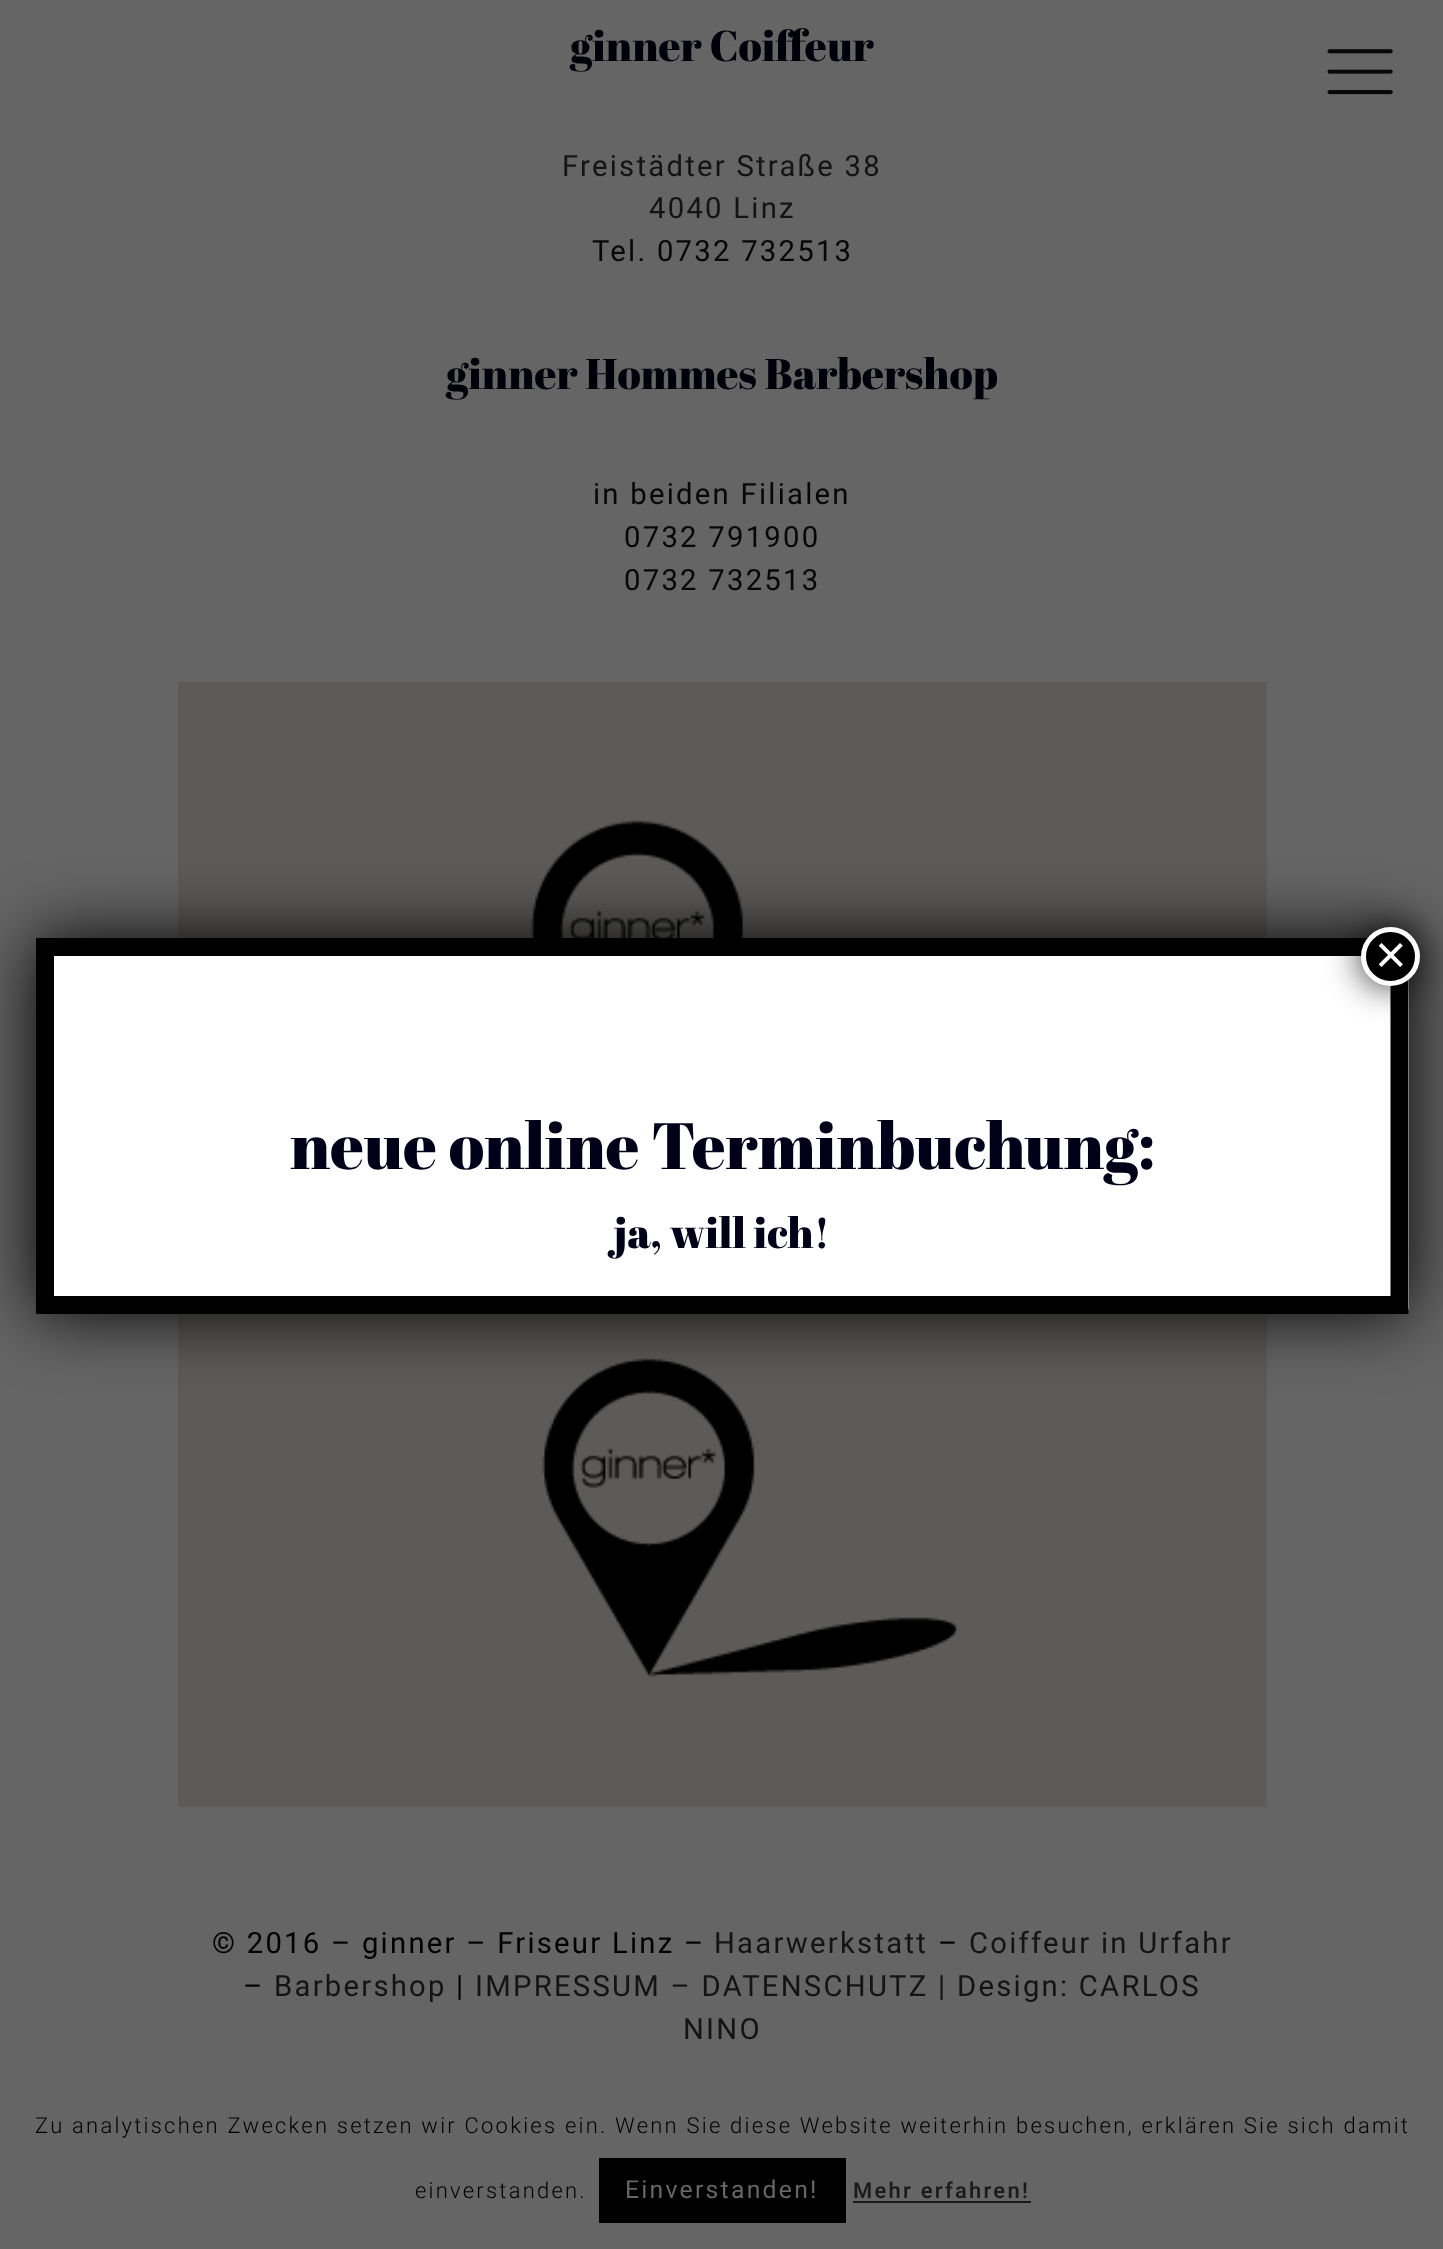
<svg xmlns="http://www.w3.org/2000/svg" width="1443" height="2249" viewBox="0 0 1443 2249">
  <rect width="100%" height="100%" fill="#656565"/>
  <path d="M178 682h1089v1125H178z" fill="#5c5b59"/>
  <image x="530" y="820" width="214" height="118" href="img/1.png"/>
  <image x="541" y="1358" width="416" height="319" href="img/2.png"/>
  <image x="1327" y="49" width="66" height="46" href="img/3.png"/>
  <rect x="36" y="938" width="1373" height="376" rx="7" fill="#020202" filter="blur(34px)"/>
  <rect x="36" y="938" width="1373" height="376" rx="7" fill="#fff"/>
  <path d="M45 947H1399.5V1305H45Z" fill="none" stroke="#000" stroke-width="18"/>
  <rect x="1359" y="925" width="63" height="63" rx="31.5" fill="#020202bf" filter="blur(17px)"/>
  <circle cx="1390.5" cy="956.5" r="27" fill="#000" stroke="#fff" stroke-width="5"/>
  <path d="M599 2158h247v65H599z" fill="#000"/>
  <path d="M853 2201h178v2H853z" fill="#1b1b1b"/>
  <text x="570" y="61" font-family="Abril Fatface" font-size="42.75" fill="#00000a">ginner Coiffeur</text>
  <g font-family="Roboto" font-size="29.25" letter-spacing="2.25" fill="#141414">
    <text x="562" y="176">Freistädter Straße 38</text>
    <text x="649" y="218">4040 Linz</text>
  </g>
  <text x="592" y="261" font-family="Roboto" font-size="29.25" letter-spacing="2.25" fill="#080707">Tel. 0732 732513</text>
  <text x="446" y="389" font-family="Abril Fatface" font-size="42.75" fill="#00000a">ginner Hommes Barbershop</text>
  <g font-family="Roboto" font-size="29.25" letter-spacing="2.25" fill="#080707">
    <text x="593" y="504">in beiden Filialen</text>
    <text x="624" y="547">0732 791900</text>
    <text x="624" y="590">0732 732513</text>
  </g>
  <text x="212" y="1953" font-family="Roboto" font-size="29.25" letter-spacing="2.25" fill="#000">© 2016 – ginner – Friseur Linz –</text>
  <text x="714" y="1953" font-family="Roboto" font-size="29.25" letter-spacing="2.25" fill="#141414">Haarwerkstatt</text>
  <text x="938" y="1953" font-family="Roboto" font-size="29.25" letter-spacing="2.25" fill="#000">–</text>
  <text x="969" y="1953" font-family="Roboto" font-size="29.25" letter-spacing="2.25" fill="#141414">Coiffeur in Urfahr</text>
  <text x="243" y="1996" font-family="Roboto" font-size="29.25" letter-spacing="2.25" fill="#000">–</text>
  <text x="274" y="1996" font-family="Roboto" font-size="29.25" letter-spacing="2.25" fill="#141414">Barbershop</text>
  <text x="456" y="1996" font-family="Roboto" font-size="29.25" letter-spacing="2.25" fill="#000">|</text>
  <g font-family="Roboto" font-size="29.25" letter-spacing="2.25" fill="#141414">
    <text x="475" y="1996">IMPRESSUM – DATENSCHUTZ | Design: CARLOS</text>
    <text x="683" y="2039">NINO</text>
  </g>
  <text x="1375" y="973" font-family="Liberation Sans" font-size="54" fill="#fff">×</text>
  <text x="290" y="1169" font-family="Abril Fatface" font-size="65.25" fill="#000119">neue online Terminbuchung:</text>
  <text x="614" y="1248" font-family="Abril Fatface" font-size="42.75" fill="#000119">ja, will ich!</text>
  <g font-family="Roboto" font-size="21.95" font-weight="300" letter-spacing="2.25" fill="#000">
    <text x="35" y="2133">Zu analytischen Zwecken setzen wir Cookies ein. Wenn Sie diese Website weiterhin besuchen, erklären Sie sich damit</text>
    <text x="415" y="2198">einverstanden.</text>
  </g>
  <text x="625" y="2198" font-family="Roboto" font-size="24.75" letter-spacing="2.25" fill="#666">Einverstanden!</text>
  <text x="853" y="2198" font-family="Roboto" font-size="21.95" font-weight="500" letter-spacing="2.25" fill="#1b1b1b">Mehr erfahren!</text>
</svg>
